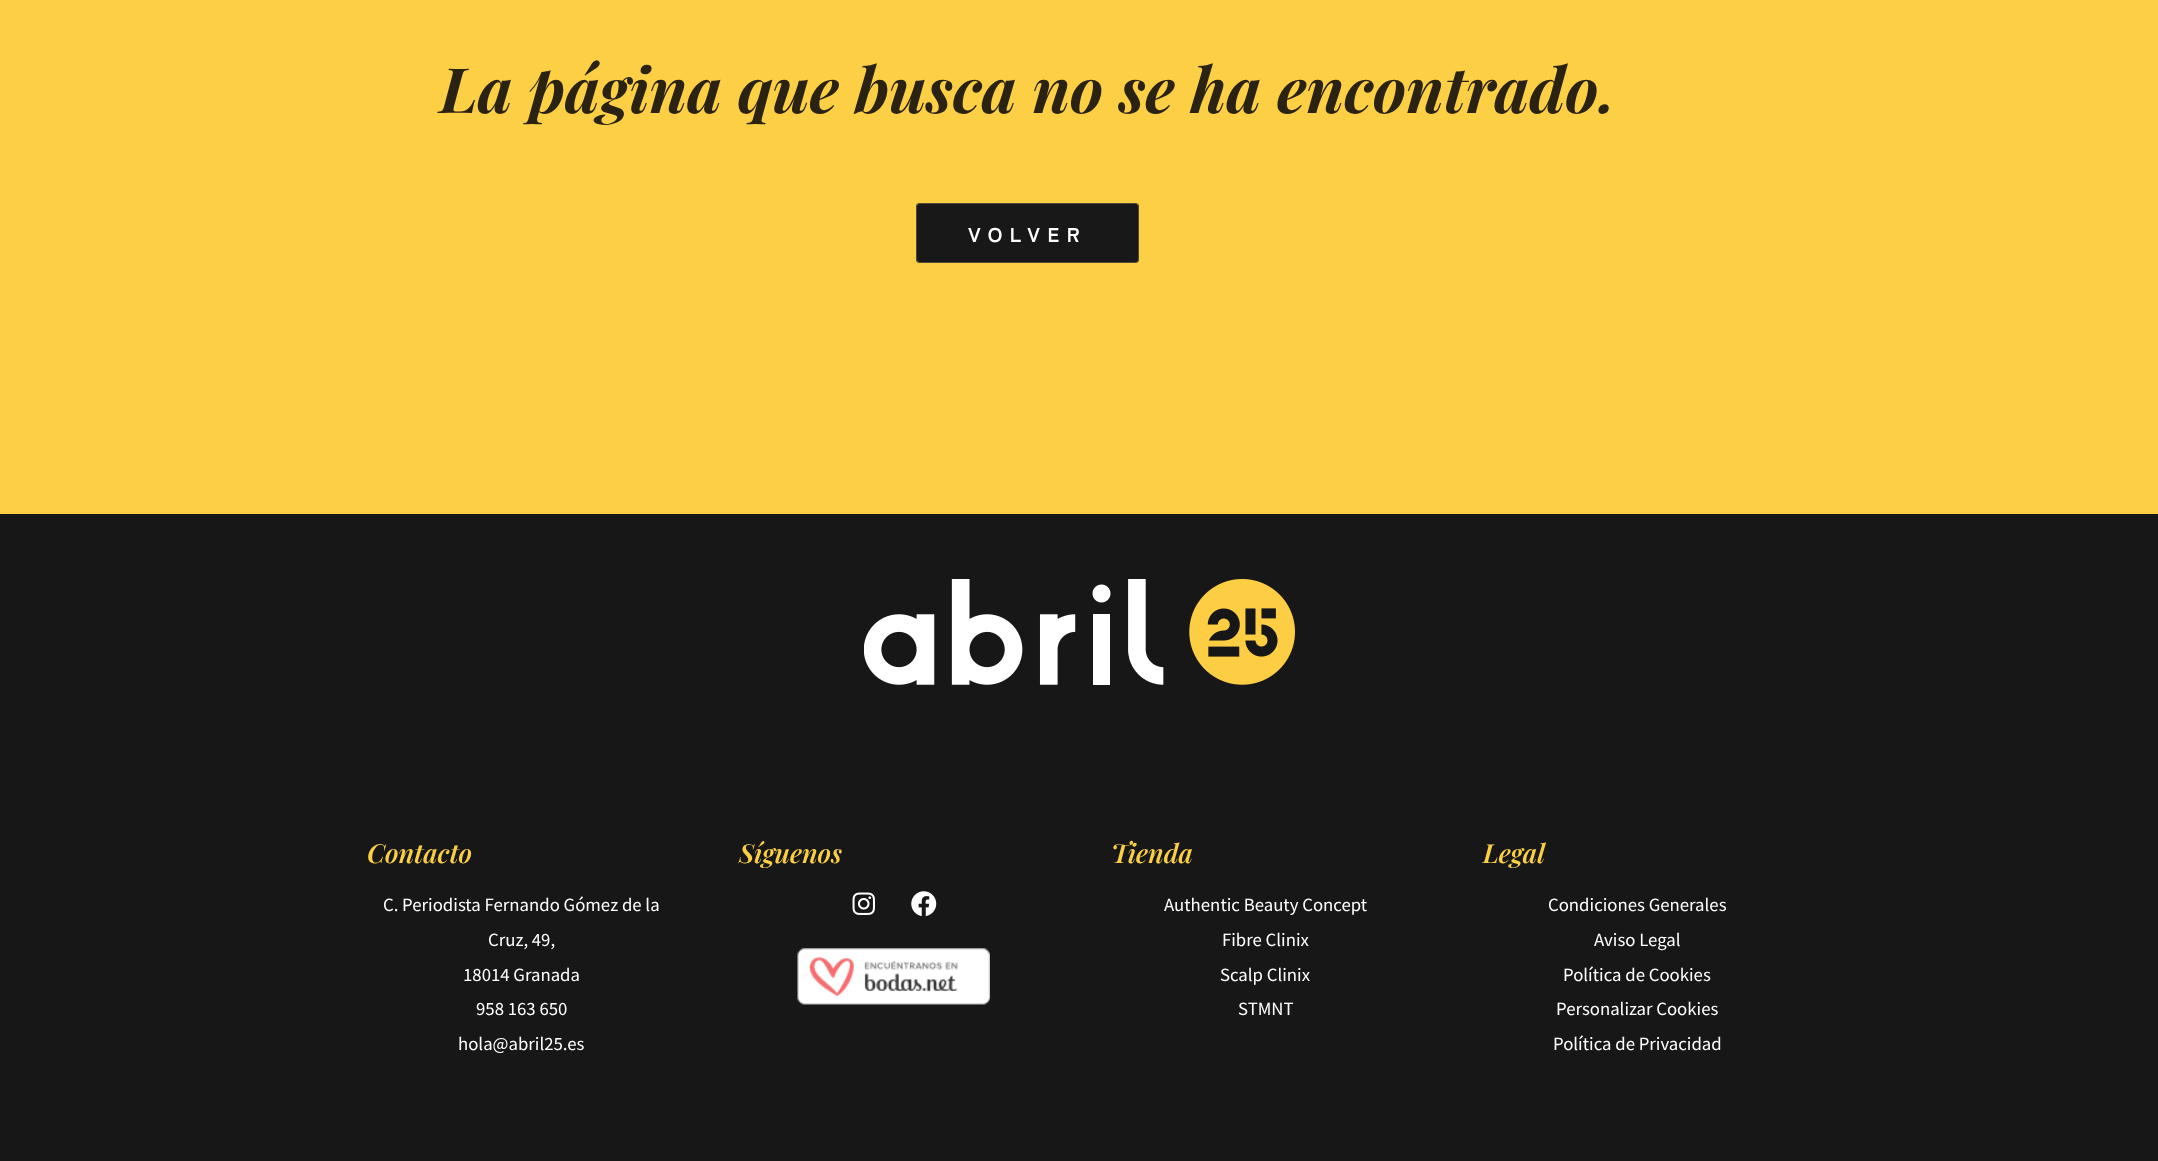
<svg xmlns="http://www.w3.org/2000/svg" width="2158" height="1161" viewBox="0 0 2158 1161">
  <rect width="100%" height="100%" fill="#171717"/>
  <path d="M0 0h2158v514H0z" fill="#fccf44"/>
  <rect x="916" y="203" width="223" height="60" rx="4" fill="#181818"/>
  <rect x="916.5" y="203.5" width="222" height="59" rx="3.5" fill="none" stroke="#c3af8654"/>
  <image x="864" y="579" width="431" height="106" href="img/1.png"/>
  <image x="852" y="892" width="23" height="23" href="img/2.png"/>
  <image x="911" y="891" width="26" height="26" href="img/3.png"/>
  <image x="797" y="948" width="193" height="57" href="img/4.png"/>
  <text x="440" y="113" font-family="Playfair Display" font-size="62.5" font-weight="bold" font-style="italic" fill="#2a2313">La página que busca no se ha encontrado.</text>
  <text x="968" y="242" font-family="Zen Kaku Gothic New" font-size="20" font-weight="bold" letter-spacing="7.5" fill="#fff">VOLVER</text>
  <text x="367" y="863" font-family="Playfair Display" font-size="26.25" font-weight="600" font-style="italic" fill="#fbcf43">Contacto</text>
  <g font-family="Source Sans Pro" font-size="18.75" fill="#fff">
    <text x="383" y="911">C. Periodista Fernando Gómez de la</text>
    <text x="488" y="946">Cruz, 49,</text>
    <text x="463" y="981">18014 Granada</text>
    <text x="476" y="1015">958 163 650</text>
    <text x="458" y="1050">hola@abril25.es</text>
  </g>
  <g font-family="Playfair Display" font-size="26.25" font-weight="600" font-style="italic" fill="#fbcf43">
    <text x="739" y="863">Síguenos</text>
    <text x="1111" y="863">Tienda</text>
  </g>
  <g font-family="Source Sans Pro" font-size="18.75" fill="#fff">
    <text x="1164" y="911">Authentic Beauty Concept</text>
    <text x="1222" y="946">Fibre Clinix</text>
    <text x="1220" y="981">Scalp Clinix</text>
    <text x="1238" y="1015">STMNT</text>
  </g>
  <text x="1483" y="863" font-family="Playfair Display" font-size="26.25" font-weight="600" font-style="italic" fill="#fbcf43">Legal</text>
  <g font-family="Source Sans Pro" font-size="18.75" fill="#fff">
    <text x="1548" y="911">Condiciones Generales</text>
    <text x="1594" y="946">Aviso Legal</text>
    <text x="1563" y="981">Política de Cookies</text>
    <text x="1556" y="1015">Personalizar Cookies</text>
    <text x="1553" y="1050">Política de Privacidad</text>
  </g>
</svg>
